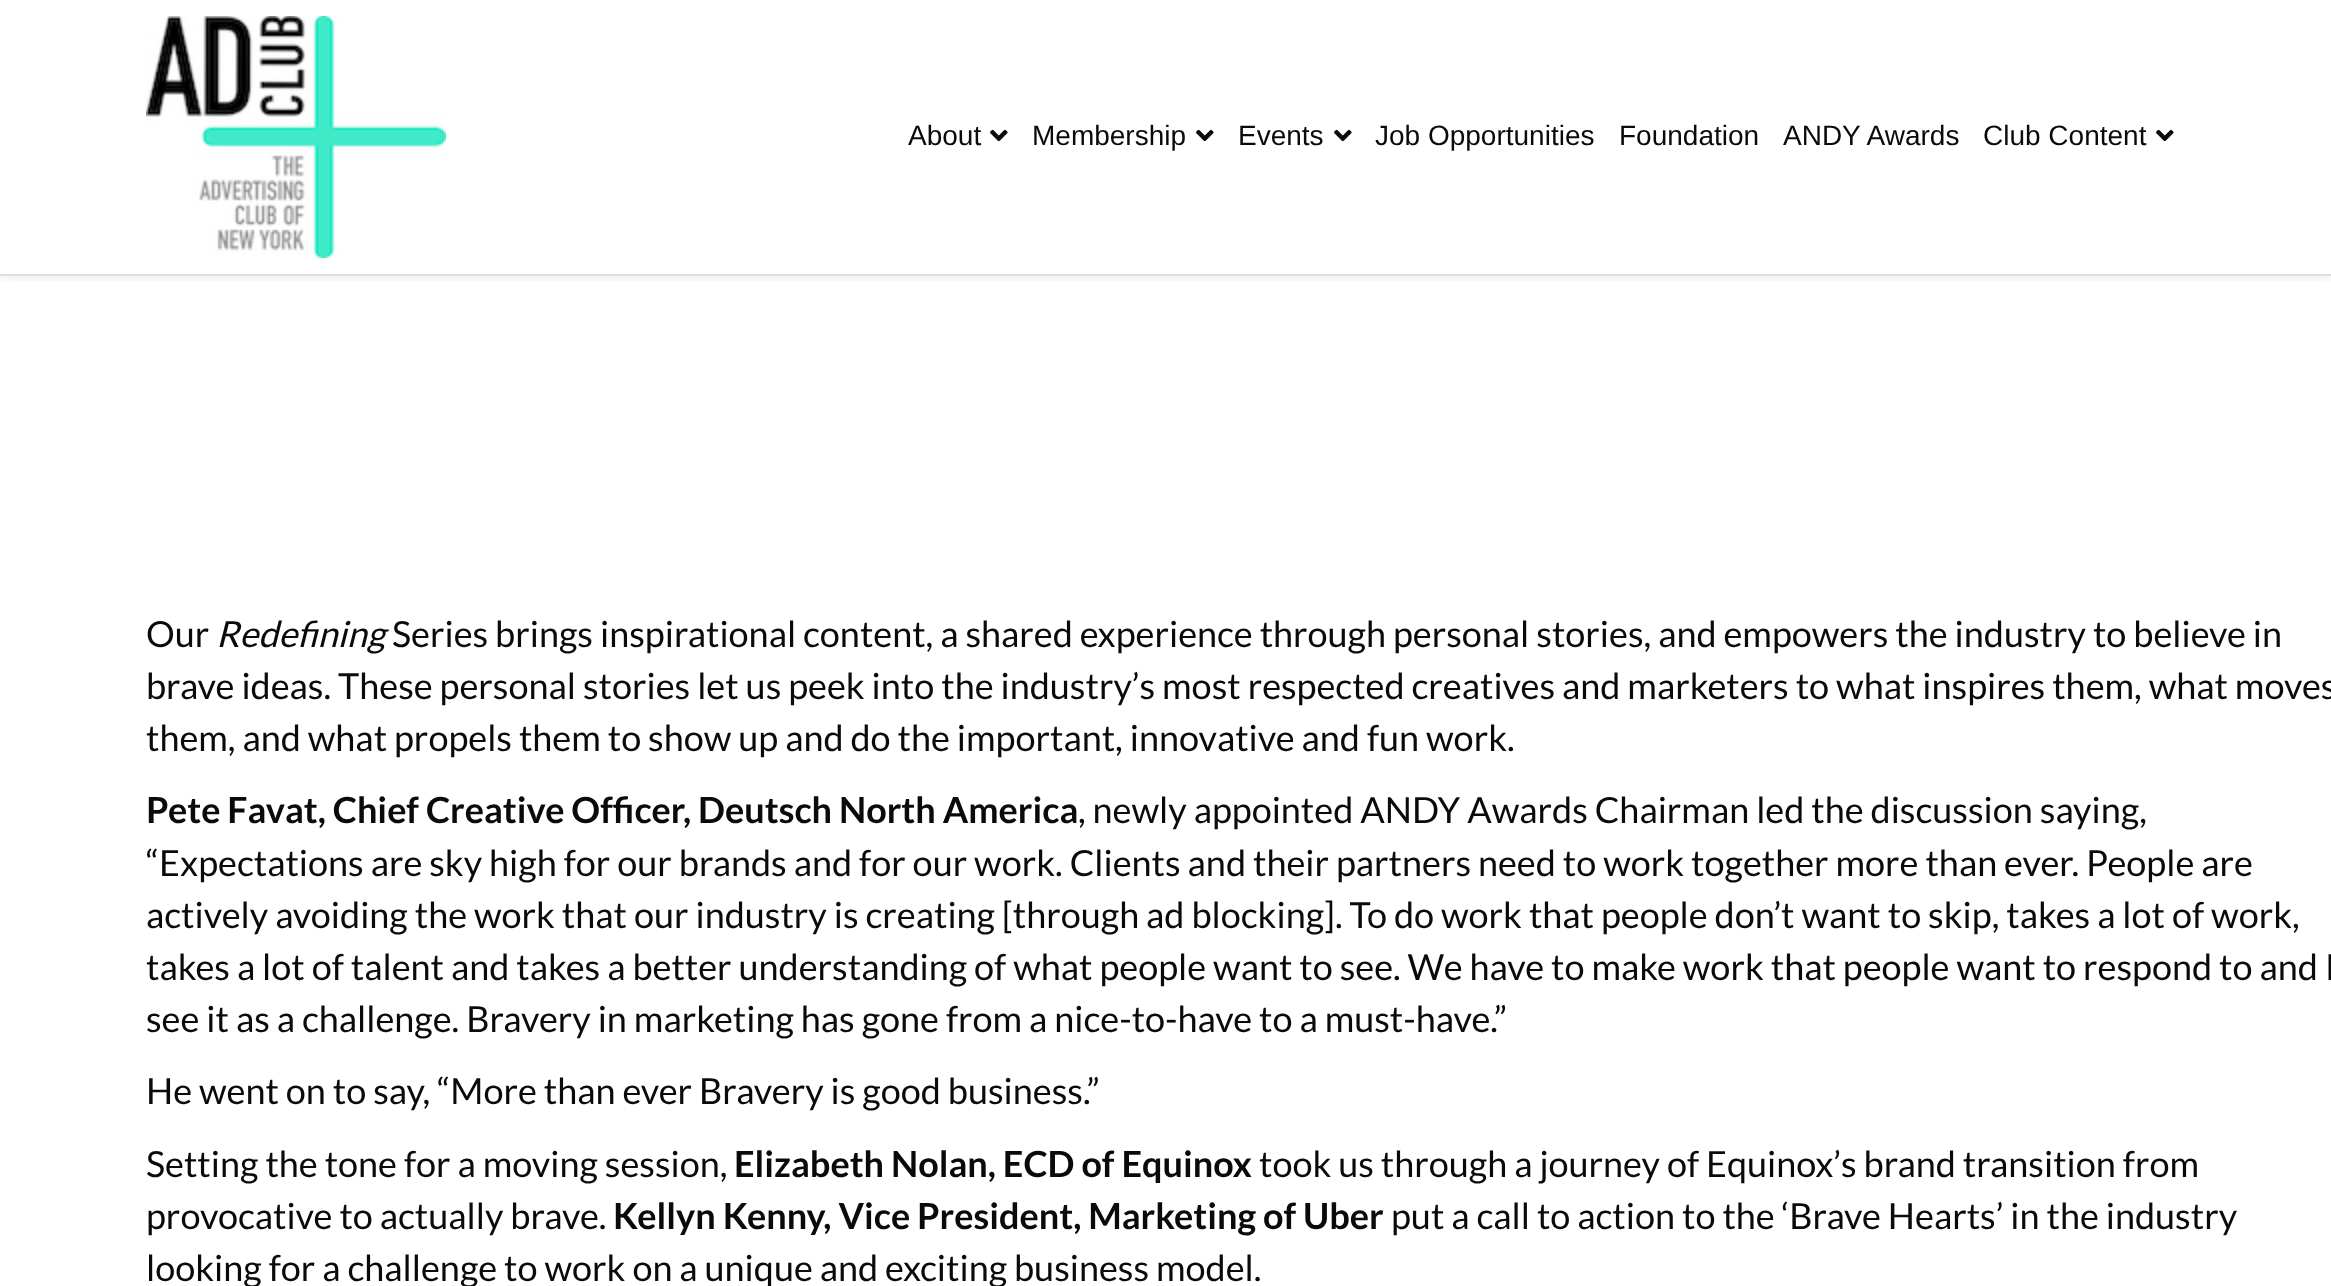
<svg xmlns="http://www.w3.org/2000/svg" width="2331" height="1286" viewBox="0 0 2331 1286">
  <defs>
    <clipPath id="clip1"><path d="M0 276h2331v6H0z"/></clipPath>
  </defs>
  <rect width="100%" height="100%" fill="#fff"/>
  <g clip-path="url(#clip1)">
    <path d="M0 0h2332v276H0z" fill="#0000001a" filter="blur(7px)"/>
  </g>
  <path d="M0 274h2331v2H0z" fill="#dfdfdf"/>
  <image x="146" y="16" width="300" height="242" href="img/1.png"/>
  <image x="990" y="129" width="18" height="13" href="img/2.png"/>
  <image x="1196" y="129" width="18" height="13" href="img/2.png"/>
  <image x="1334" y="129" width="18" height="13" href="img/2.png"/>
  <image x="2156" y="129" width="18" height="13" href="img/2.png"/>
  <g font-family="Liberation Sans" font-size="28" fill="#0a0a0a">
    <text x="908" y="145">About</text>
    <text x="1032" y="145">Membership</text>
    <text x="1238" y="145">Events</text>
    <text x="1375" y="145">Job Opportunities</text>
    <text x="1619" y="145">Foundation</text>
    <text x="1783" y="145">ANDY Awards</text>
    <text x="1983" y="145">Club Content</text>
  </g>
  <text x="146" y="647" font-family="Lato" font-size="36" fill="#0a0a0a">Our</text>
  <text x="216" y="647" font-family="Lato" font-size="36" font-style="italic" fill="#0a0a0a">Redefining</text>
  <g font-family="Lato" font-size="36" fill="#0a0a0a">
    <text x="392" y="647">Series brings inspirational content, a shared experience through personal stories, and empowers the industry to believe in</text>
    <text x="146" y="699">brave ideas. These personal stories let us peek into the industry’s most respected creatives and marketers to what inspires them, what moves</text>
    <text x="146" y="751">them, and what propels them to show up and do the important, innovative and fun work.</text>
  </g>
  <text x="146" y="823" font-family="Lato" font-size="36" font-weight="bold" fill="#0a0a0a">Pete Favat, Chief Creative Officer, Deutsch North America</text>
  <g font-family="Lato" font-size="36" fill="#0a0a0a">
    <text x="1078" y="823">, newly appointed ANDY Awards Chairman led the discussion saying,</text>
    <text x="146" y="876">“Expectations are sky high for our brands and for our work. Clients and their partners need to work together more than ever. People are</text>
    <text x="146" y="928">actively avoiding the work that our industry is creating [through ad blocking]. To do work that people don’t want to skip, takes a lot of work,</text>
    <text x="146" y="980">takes a lot of talent and takes a better understanding of what people want to see. We have to make work that people want to respond to and I</text>
    <text x="146" y="1032">see it as a challenge. Bravery in marketing has gone from a nice-to-have to a must-have.”</text>
    <text x="146" y="1104">He went on to say, “More than ever Bravery is good business.”</text>
    <text x="146" y="1177">Setting the tone for a moving session,</text>
  </g>
  <text x="734" y="1177" font-family="Lato" font-size="36" font-weight="bold" fill="#0a0a0a">Elizabeth Nolan, ECD of Equinox</text>
  <g font-family="Lato" font-size="36" fill="#0a0a0a">
    <text x="1259" y="1177">took us through a journey of Equinox’s brand transition from</text>
    <text x="146" y="1229">provocative to actually brave.</text>
  </g>
  <text x="613" y="1229" font-family="Lato" font-size="36" font-weight="bold" fill="#0a0a0a">Kellyn Kenny, Vice President, Marketing of Uber</text>
  <g font-family="Lato" font-size="36" fill="#0a0a0a">
    <text x="1391" y="1229">put a call to action to the ‘Brave Hearts’ in the industry</text>
    <text x="146" y="1281">looking for a challenge to work on a unique and exciting business model.</text>
  </g>
</svg>
